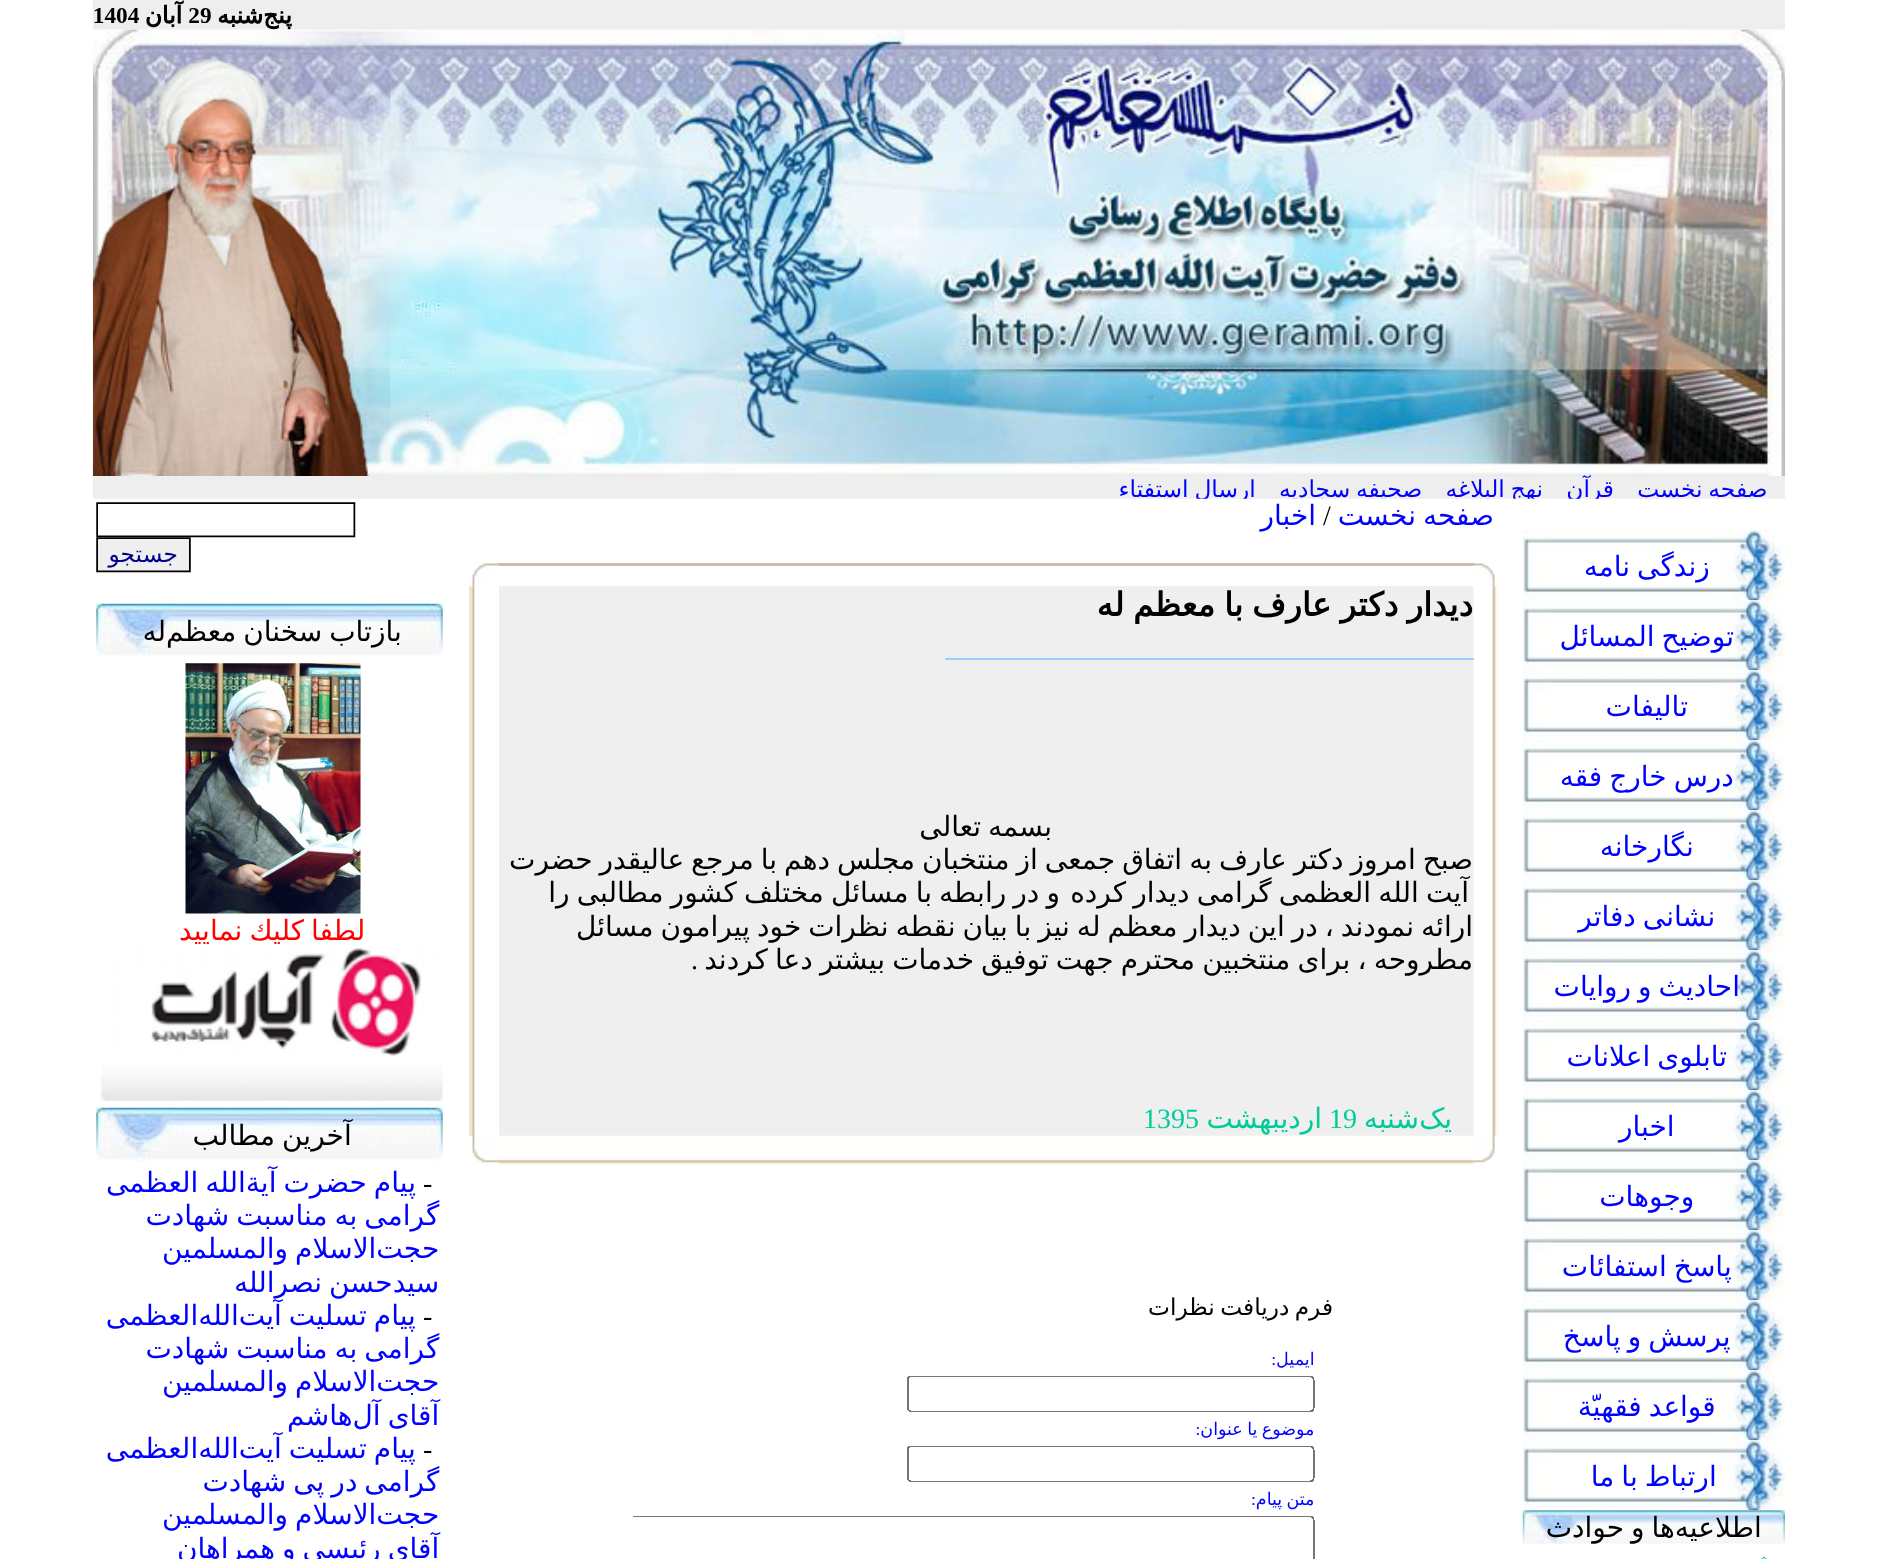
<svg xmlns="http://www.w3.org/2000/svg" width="1877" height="1559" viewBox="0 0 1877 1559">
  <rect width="100%" height="100%" fill="#fff"/>
  <image x="92" y="0" width="1693" height="499" href="img/1.png"/>
  <image x="1522" y="530" width="263" height="1029" href="img/2.png"/>
  <path d="M498 563h976v3H498z" fill="#c9bfac"/>
  <path d="M499 586h975v550H499z" fill="#efefef"/>
  <image x="1473" y="586" width="24" height="550" href="img/5.png"/>
  <image x="1473" y="563" width="22" height="24" href="img/3.png"/>
  <image x="469" y="586" width="6" height="550" href="img/6.png"/>
  <image x="472" y="563" width="27" height="24" href="img/4.png"/>
  <path d="M945 658h529v2H945z" fill="#9cf"/>
  <image x="498" y="1135" width="976" height="29" href="img/8.png"/>
  <image x="1473" y="1135" width="22" height="28" href="img/7.png"/>
  <image x="472" y="1135" width="27" height="28" href="img/9.png"/>
  <image x="633" y="1351" width="682" height="208" href="img/10.png"/>
  <image x="96" y="502" width="347" height="1057" href="img/11.png"/>
  <text x="1494" y="525" word-spacing="-1.9" font-family="DejaVu Sans" font-size="28" direction="rtl" fill="#00f">صفحه نخست</text>
  <text x="1323" y="525" font-family="Liberation Serif" font-size="28" fill="#000">/</text>
  <text x="1316" y="525" font-family="DejaVu Sans" font-size="28" direction="rtl" fill="#00f">اخبار</text>
  <text x="1473" y="616" word-spacing="-1.5" font-family="DejaVu Sans" font-size="32.75" font-weight="bold" direction="rtl" fill="#000">دیدار دکتر عارف با معظم له</text>
  <g font-family="DejaVu Sans" font-size="28" direction="rtl" fill="#000">
    <text x="1052" y="836" word-spacing="-1.9">بسمه تعالی</text>
    <text x="1473" y="869" word-spacing="-1.9">صبح امروز دکتر عارف به اتفاق جمعی از منتخبان مجلس دهم با مرجع عالیقدر حضرت</text>
    <text x="1469" y="902" word-spacing="-1.75">آیت الله العظمی گرامی دیدار کرده</text>
    <text x="1060" y="902" word-spacing="-1.75">و در رابطه با مسائل مختلف کشور مطالبی را</text>
    <text x="1473" y="936" word-spacing="-1.9">ارائه نمودند ، در این دیدار معظم له نیز با بیان نقطه نظرات خود پیرامون مسائل</text>
    <text x="1473" y="969" word-spacing="-1.75">مطروحه ، برای منتخبین محترم جهت توفیق خدمات بیشتر دعا کردند</text>
  </g>
  <text x="698" y="969" font-family="Liberation Serif" font-size="28" direction="rtl" fill="#000">.</text>
  <g font-family="DejaVu Sans" font-size="28" direction="rtl" fill="#0c9">
    <text x="1452" y="1128">یک</text>
    <text x="1419" y="1128">شنبه</text>
  </g>
  <text x="1329" y="1128" font-family="Liberation Serif" font-size="28" fill="#0c9">19</text>
  <text x="1322" y="1128" font-family="DejaVu Sans" font-size="28" direction="rtl" fill="#0c9">اردیبهشت</text>
  <text x="1143" y="1128" font-family="Liberation Serif" font-size="28" fill="#0c9">1395</text>
  <text x="1333" y="1315" word-spacing="-2" font-family="DejaVu Sans" font-size="23.25" direction="rtl" fill="#000">فرم دریافت نظرات</text>
</svg>
